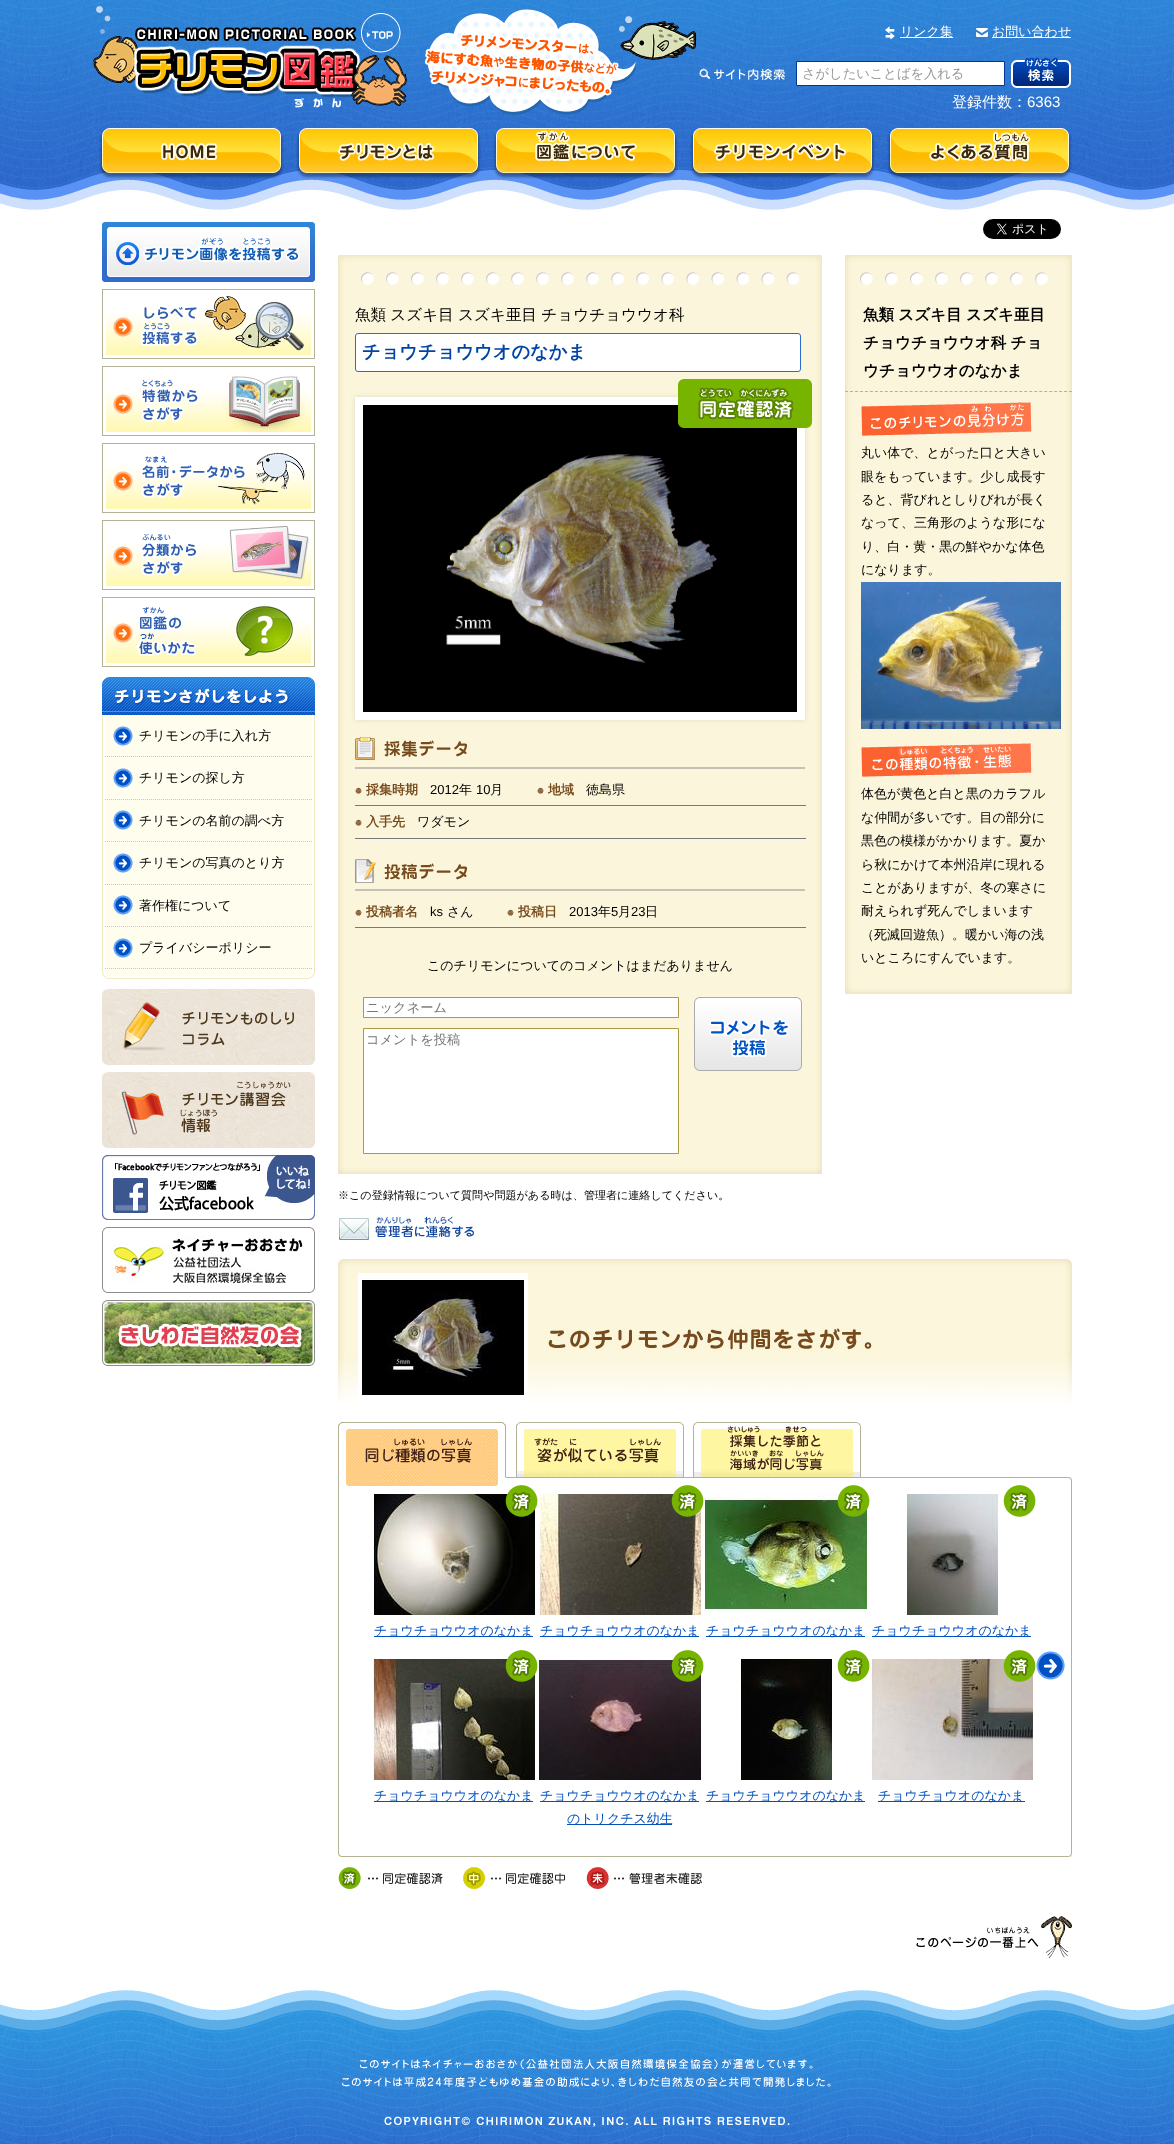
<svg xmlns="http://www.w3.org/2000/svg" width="1174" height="2144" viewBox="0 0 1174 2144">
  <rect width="100%" height="100%" fill="#fff"/>
  <image x="0" y="0" width="1174" height="210" href="img/1.png"/>
  <image x="93" y="6" width="314" height="102" href="img/2.png"/>
  <image x="424" y="9" width="273" height="106" href="img/3.png"/>
  <image x="885" y="26" width="10" height="13" href="img/4.png"/>
  <path d="M900 37h53v1H900z" fill="#fff"/>
  <image x="976" y="28" width="12" height="9" href="img/5.png"/>
  <path d="M992 37h79v1H992z" fill="#fff"/>
  <image x="699" y="68" width="86" height="12" href="img/6.png"/>
  <path d="M796.5 61.5h208v24H796.5z" fill="#fff" stroke="#003795"/>
  <image x="1011" y="57" width="60" height="31" href="img/7.png"/>
  <image x="99" y="128" width="185" height="51" href="img/8.png"/>
  <image x="296" y="128" width="185" height="51" href="img/9.png"/>
  <image x="493" y="128" width="185" height="51" href="img/10.png"/>
  <image x="690" y="128" width="185" height="51" href="img/11.png"/>
  <image x="887" y="128" width="185" height="51" href="img/12.png"/>
  <image x="983" y="219" width="78" height="20" href="img/13.png"/>
  <image x="102" y="222" width="213" height="60" href="img/14.png"/>
  <image x="102" y="289" width="213" height="70" href="img/15.png"/>
  <image x="102" y="366" width="213" height="70" href="img/16.png"/>
  <image x="102" y="443" width="213" height="70" href="img/17.png"/>
  <image x="102" y="520" width="213" height="70" href="img/18.png"/>
  <image x="102" y="597" width="213" height="70" href="img/19.png"/>
  <image x="102" y="715" width="213" height="264" href="img/20.png"/>
  <image x="102" y="677" width="213" height="38" href="img/21.png"/>
  <image x="113" y="726" width="20" height="20" href="img/22.png"/>
  <path d="M105 756.5H312" fill="none" stroke="#cbc8b2" stroke-dasharray="1 1"/>
  <image x="113" y="768" width="20" height="20" href="img/22.png"/>
  <path d="M105 799.5H312" fill="none" stroke="#cbc8b2" stroke-dasharray="1 1"/>
  <image x="113" y="810" width="20" height="20" href="img/22.png"/>
  <path d="M105 841.5H312" fill="none" stroke="#cbc8b2" stroke-dasharray="1 1"/>
  <image x="113" y="853" width="20" height="20" href="img/22.png"/>
  <path d="M105 884.5H312" fill="none" stroke="#cbc8b2" stroke-dasharray="1 1"/>
  <image x="113" y="895" width="20" height="20" href="img/22.png"/>
  <path d="M105 926.5H312" fill="none" stroke="#cbc8b2" stroke-dasharray="1 1"/>
  <image x="113" y="938" width="20" height="20" href="img/22.png"/>
  <path d="M105 968.5H312" fill="none" stroke="#cbc8b2" stroke-dasharray="1 1"/>
  <image x="102" y="989" width="213" height="76" href="img/23.png"/>
  <image x="102" y="1072" width="213" height="76" href="img/24.png"/>
  <image x="102" y="1155" width="213" height="65" href="img/25.png"/>
  <image x="102" y="1227" width="213" height="66" href="img/26.png"/>
  <image x="102" y="1300" width="213" height="66" href="img/27.png"/>
  <image x="338" y="255" width="484" height="919" href="img/28.png"/>
  <image x="340" y="255" width="480" height="30" href="img/29.png"/>
  <rect x="355.5" y="333.5" width="445" height="38" rx="2.5" fill="#fff" stroke="#2a6ccd"/>
  <path d="M355 397h450v323H355z" fill="#dedac6" filter="blur(2.5px)"/>
  <path d="M355 397h450v323H355z" fill="#fff"/>
  <image x="363" y="405" width="434" height="307" href="img/31.png"/>
  <image x="678" y="379" width="134" height="49" href="img/30.png"/>
  <path d="M355 767h450v2H355z" fill="#c4c2b5"/>
  <image x="355" y="737" width="112" height="23" href="img/32.png"/>
  <path d="M355 805h451v1H355z" fill="#797979"/>
  <image x="355" y="787" width="7" height="7" href="img/33.png"/>
  <image x="537" y="787" width="7" height="7" href="img/33.png"/>
  <path d="M355 838h451v1H355z" fill="#797979"/>
  <image x="355" y="819" width="7" height="7" href="img/33.png"/>
  <path d="M355 889h450v2H355z" fill="#c4c2b5"/>
  <image x="355" y="859" width="112" height="24" href="img/34.png"/>
  <path d="M355 927h451v1H355z" fill="#797979"/>
  <image x="355" y="909" width="7" height="7" href="img/33.png"/>
  <image x="507" y="909" width="7" height="7" href="img/33.png"/>
  <path d="M363.5 997.5h315v20H363.5z" fill="#fff" stroke="#aa9a46"/>
  <image x="694" y="997" width="108" height="74" href="img/35.png"/>
  <path d="M363.5 1028.5h315v125H363.5z" fill="#fff" stroke="#aa9a46"/>
  <image x="339" y="1216" width="135" height="24" href="img/36.png"/>
  <image x="845" y="255" width="227" height="739" href="img/37.png"/>
  <image x="846" y="255" width="225" height="30" href="img/38.png"/>
  <path d="M845 391.5H1072" fill="none" stroke="#b5b19b" stroke-dasharray="3 1.98"/>
  <image x="861" y="402" width="171" height="34" href="img/39.png"/>
  <image x="861" y="582" width="200" height="147" href="img/40.png"/>
  <image x="861" y="743" width="171" height="34" href="img/41.png"/>
  <image x="338" y="1259" width="734" height="144" href="img/42.png"/>
  <path d="M360 1275h166v125H360z" fill="none" stroke="#fff" stroke-width="4"/>
  <image x="362" y="1277" width="162" height="121" href="img/43.png"/>
  <image x="338" y="1481" width="734" height="376" href="img/47.png"/>
  <image x="338" y="1422" width="168" height="64" href="img/44.png"/>
  <image x="516" y="1422" width="168" height="55" href="img/45.png"/>
  <image x="693" y="1422" width="168" height="55" href="img/46.png"/>
  <image x="506" y="1477" width="566" height="4" href="img/48.png"/>
  <image x="373" y="1494" width="162" height="121" href="img/50.png"/>
  <image x="505" y="1485" width="33" height="32" href="img/49.png"/>
  <path d="M374 1636h159v1H374z" fill="#0251bf"/>
  <image x="539" y="1494" width="162" height="121" href="img/52.png"/>
  <image x="671" y="1485" width="33" height="32" href="img/51.png"/>
  <path d="M540 1636h159v1H540z" fill="#0251bf"/>
  <image x="705" y="1494" width="162" height="119" href="img/54.png"/>
  <image x="837" y="1485" width="33" height="32" href="img/53.png"/>
  <path d="M706 1636h159v1H706z" fill="#0251bf"/>
  <image x="906" y="1494" width="93" height="121" href="img/55.png"/>
  <image x="1003" y="1485" width="33" height="32" href="img/56.png"/>
  <path d="M872 1636h159v1H872z" fill="#0251bf"/>
  <image x="373" y="1659" width="162" height="121" href="img/58.png"/>
  <image x="505" y="1650" width="33" height="32" href="img/57.png"/>
  <path d="M374 1801h159v1H374z" fill="#0251bf"/>
  <image x="539" y="1659" width="162" height="121" href="img/60.png"/>
  <image x="671" y="1650" width="33" height="32" href="img/59.png"/>
  <path d="M540 1801h159v1H540z" fill="#0251bf"/>
  <path d="M567 1824h105v1H567z" fill="#0251bf"/>
  <image x="739" y="1659" width="94" height="121" href="img/61.png"/>
  <image x="837" y="1650" width="33" height="32" href="img/56.png"/>
  <path d="M706 1801h159v1H706z" fill="#0251bf"/>
  <image x="871" y="1659" width="162" height="121" href="img/63.png"/>
  <image x="1003" y="1650" width="33" height="32" href="img/62.png"/>
  <path d="M878 1801h147v1H878z" fill="#0251bf"/>
  <image x="1036" y="1651" width="29" height="29" href="img/64.png"/>
  <image x="338" y="1867" width="364" height="22" href="img/65.png"/>
  <image x="916" y="1916" width="156" height="42" href="img/66.png"/>
  <image x="0" y="1990" width="1174" height="154" href="img/67.png"/>
  <image x="342" y="2058" width="489" height="69" href="img/68.png"/>
  <g font-family="WenQuanYi Zen Hei" font-size="13" font-weight="500" fill="#fff">
    <text x="900" y="36">リンク集</text>
    <text x="992" y="36">お問い合わせ</text>
  </g>
  <text x="802" y="78" font-family="WenQuanYi Zen Hei" font-size="13.25" font-weight="500" fill="#999">さがしたいことばを入れる</text>
  <text x="952" y="107" font-family="WenQuanYi Zen Hei" font-size="15" font-weight="500" fill="#fff">登録件数：</text>
  <text x="1027" y="107" font-family="Liberation Sans" font-size="15" fill="#fff">6363</text>
  <g font-family="WenQuanYi Zen Hei" font-size="13" font-weight="500" fill="#000">
    <text x="139" y="740">チリモンの手に入れ方</text>
    <text x="139" y="782">チリモンの探し方</text>
    <text x="139" y="825">チリモンの名前の調べ方</text>
    <text x="139" y="867">チリモンの写真のとり方</text>
    <text x="139" y="910">著作権について</text>
    <text x="139" y="952">プライバシーポリシー</text>
  </g>
  <text x="355" y="320" word-spacing="-0.5" font-family="WenQuanYi Zen Hei" font-size="15.6" font-weight="500" fill="#000">魚類 スズキ目 スズキ亜目 チョウチョウウオ科</text>
  <text x="362" y="358" font-family="WenQuanYi Zen Hei" font-size="18.25" font-weight="bold" fill="#0045a6">チョウチョウウオのなかま</text>
  <text x="366" y="794" font-family="WenQuanYi Zen Hei" font-size="13" font-weight="bold" fill="#774a1d">採集時期</text>
  <text x="430" y="794" font-family="Liberation Sans" font-size="13" fill="#000">2012</text>
  <text x="459" y="794" font-family="WenQuanYi Zen Hei" font-size="13" font-weight="500" fill="#000">年</text>
  <text x="476" y="794" font-family="Liberation Sans" font-size="13" fill="#000">10</text>
  <text x="490" y="794" font-family="WenQuanYi Zen Hei" font-size="13" font-weight="500" fill="#000">月</text>
  <text x="548" y="794" font-family="WenQuanYi Zen Hei" font-size="13" font-weight="bold" fill="#774a1d">地域</text>
  <text x="586" y="794" font-family="WenQuanYi Zen Hei" font-size="13" font-weight="500" fill="#000">徳島県</text>
  <text x="366" y="826" font-family="WenQuanYi Zen Hei" font-size="13" font-weight="bold" fill="#774a1d">入手先</text>
  <text x="417" y="826" font-family="WenQuanYi Zen Hei" font-size="13" font-weight="500" fill="#000">ワダモン</text>
  <text x="366" y="916" font-family="WenQuanYi Zen Hei" font-size="13" font-weight="bold" fill="#774a1d">投稿者名</text>
  <text x="430" y="916" font-family="Liberation Sans" font-size="13" fill="#000">ks</text>
  <text x="447" y="916" font-family="WenQuanYi Zen Hei" font-size="13" font-weight="500" fill="#000">さん</text>
  <text x="518" y="916" font-family="WenQuanYi Zen Hei" font-size="13" font-weight="bold" fill="#774a1d">投稿日</text>
  <text x="569" y="916" font-family="Liberation Sans" font-size="13" fill="#000">2013</text>
  <text x="598" y="916" font-family="WenQuanYi Zen Hei" font-size="13" font-weight="500" fill="#000">年</text>
  <text x="611" y="916" font-family="Liberation Sans" font-size="13" fill="#000">5</text>
  <text x="618" y="916" font-family="WenQuanYi Zen Hei" font-size="13" font-weight="500" fill="#000">月</text>
  <text x="631" y="916" font-family="Liberation Sans" font-size="13" fill="#000">23</text>
  <g font-family="WenQuanYi Zen Hei" font-size="13" font-weight="500" fill="#000">
    <text x="645" y="916">日</text>
    <text x="427" y="970">このチリモンについてのコメントはまだありません</text>
  </g>
  <g font-family="WenQuanYi Zen Hei" font-size="13.25" font-weight="500" fill="#757575">
    <text x="366" y="1012">ニックネーム</text>
    <text x="366" y="1044">コメントを投稿</text>
  </g>
  <text x="338" y="1199" font-family="WenQuanYi Zen Hei" font-size="11.05" font-weight="500" fill="#000">※この登録情報について質問や問題がある時は、管理者に連絡してください。</text>
  <g font-family="WenQuanYi Zen Hei" font-size="15.6" font-weight="bold" fill="#000">
    <text x="863" y="320" word-spacing="-0.5">魚類 スズキ目 スズキ亜目</text>
    <text x="863" y="348" word-spacing="-0.5">チョウチョウウオ科 チョ</text>
    <text x="863" y="376">ウチョウウオのなかま</text>
  </g>
  <g font-family="WenQuanYi Zen Hei" font-size="13" font-weight="500" fill="#000">
    <text x="861" y="457">丸い体で、とがった口と大きい</text>
    <text x="861" y="481">眼をもっています。少し成長す</text>
    <text x="861" y="504">ると、背びれとしりびれが長く</text>
    <text x="861" y="527">なって、三角形のような形にな</text>
    <text x="861" y="551">り、白・黄・黒の鮮やかな体色</text>
    <text x="861" y="574">になります。</text>
    <text x="861" y="798">体色が黄色と白と黒のカラフル</text>
    <text x="861" y="822">な仲間が多いです。目の部分に</text>
    <text x="861" y="845">黒色の模様がかかります。夏か</text>
    <text x="861" y="869">ら秋にかけて本州沿岸に現れる</text>
    <text x="861" y="892">ことがありますが、冬の寒さに</text>
    <text x="861" y="915">耐えられず死んでしまいます</text>
    <text x="861" y="939">（死滅回遊魚）。暖かい海の浅</text>
    <text x="861" y="962">いところにすんでいます。</text>
  </g>
  <g font-family="WenQuanYi Zen Hei" font-size="13" font-weight="500" fill="#0251bf">
    <text x="374" y="1635">チョウチョウウオのなかま</text>
    <text x="540" y="1635">チョウチョウウオのなかま</text>
    <text x="706" y="1635">チョウチョウウオのなかま</text>
    <text x="872" y="1635">チョウチョウウオのなかま</text>
    <text x="374" y="1800">チョウチョウウオのなかま</text>
    <text x="540" y="1800">チョウチョウウオのなかま</text>
    <text x="567" y="1823">のトリクチス幼生</text>
    <text x="706" y="1800">チョウチョウウオのなかま</text>
    <text x="878" y="1800">チョウチョウオのなかま</text>
  </g>
</svg>
